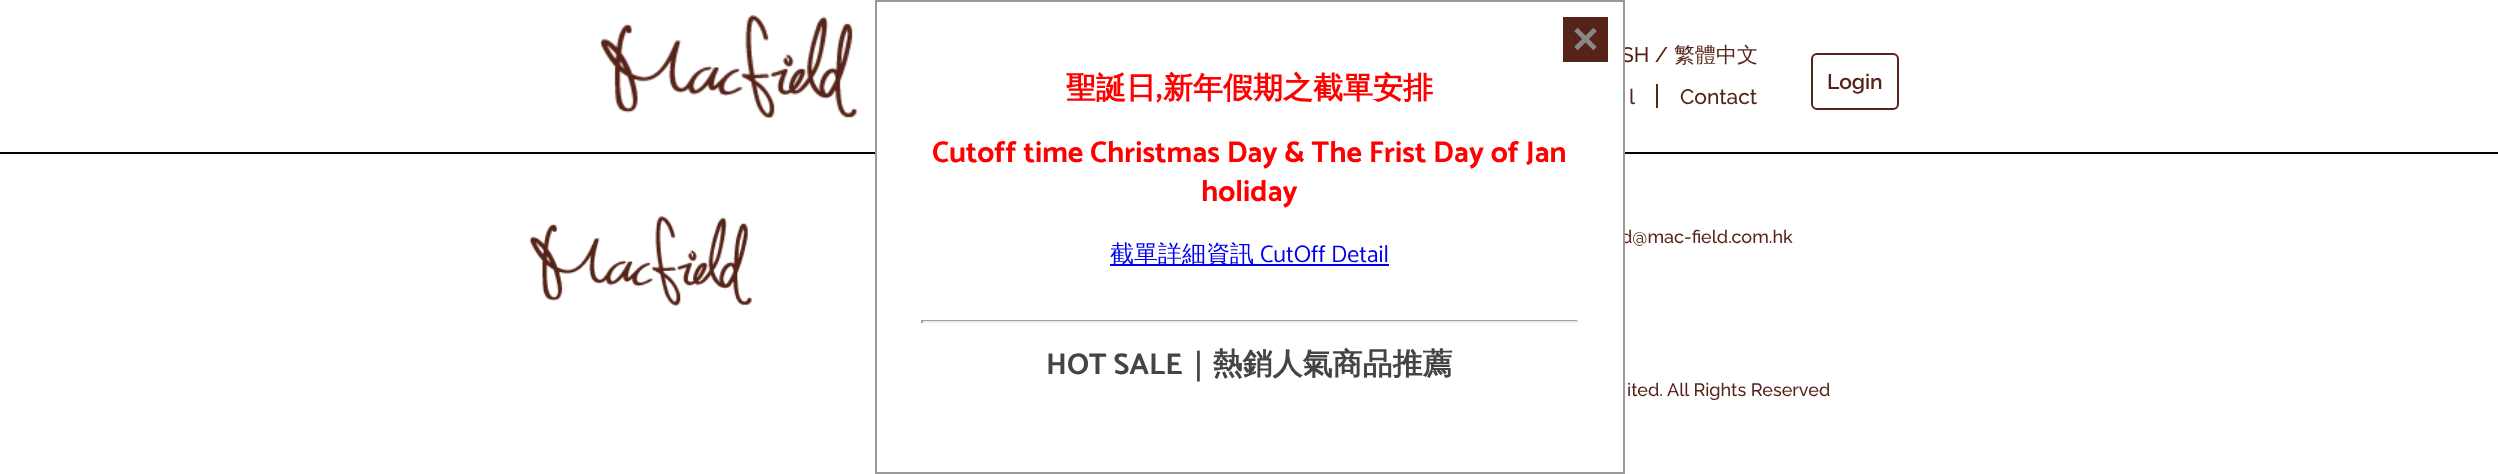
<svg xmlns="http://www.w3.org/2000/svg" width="2498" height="474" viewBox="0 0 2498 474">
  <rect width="100%" height="100%" fill="#fff"/>
  <image x="600" y="15" width="257" height="103" href="img/2.png"/>
  <path d="M1656 84h2v24H1656z" fill="#562318"/>
  <rect x="1812" y="54" width="86" height="55" rx="5" fill="none" stroke="#562318" stroke-width="2"/>
  <path d="M0 152h2498v2H0z" fill="#000"/>
  <image x="529" y="216" width="223" height="90" href="img/3.png"/>
  <text x="1621" y="62" font-family="Raleway" font-size="21" font-weight="500" fill="#562318">SH /</text>
  <text x="1674" y="62" font-family="WenQuanYi Zen Hei" font-size="21" font-weight="500" fill="#562318">繁體中文</text>
  <g font-family="Raleway" font-size="21" font-weight="500" fill="#562318">
    <text x="1629" y="104">l</text>
    <text x="1680" y="104">Contact</text>
  </g>
  <text x="1827" y="89" font-family="Raleway" font-size="21" font-weight="600" fill="#562318">Login</text>
  <text x="1621" y="243" font-family="Raleway" font-size="18" font-weight="500" fill="#562318">d@mac-field.com.hk</text>
  <path d="M877 49h746v193H877z" fill="#fff"/>
  <path d="M876 1h748v472H876z" fill="none" stroke="#999" stroke-width="2"/>
  <path d="M1563 17h45v45H1563z" fill="#562318"/>
  <image x="1574" y="27" width="23" height="24" href="img/1.png"/>
  <path d="M921 320h657v1H921z" fill="#9f9f9f"/>
  <path d="M1577 320h2v3H1577z" fill="#eee"/>
  <path d="M921 321h657v2H921z" fill="#eee"/>
  <path d="M921 320h2v3H921z" fill="#9f9f9f"/>
  <text x="1183" y="374" font-family="WenQuanYi Zen Hei" font-size="30" font-weight="bold" fill="#444">｜熱銷人氣商品推薦</text>
  <text x="1046" y="374" font-family="Catamaran" font-size="30" font-weight="bold" fill="#444">HOT SALE</text>
  <text x="1260" y="262" font-family="Catamaran" font-size="24" fill="#00e">CutOff Detail</text>
  <path d="M1110 264h279v2H1110z" fill="#00e"/>
  <text x="1110" y="262" font-family="WenQuanYi Zen Hei" font-size="24" font-weight="500" fill="#00e">截單詳細資訊</text>
  <g font-family="Catamaran" font-size="30" font-weight="bold" fill="#f00">
    <text x="1201" y="201">holiday</text>
    <text x="932" y="162">Cutoff time Christmas Day &amp; The Frist Day of Jan</text>
  </g>
  <text x="1163" y="98" font-family="WenQuanYi Zen Hei" font-size="30" font-weight="bold" fill="#f00">新年假期之截單安排</text>
  <text x="1156" y="98" font-family="Catamaran" font-size="30" font-weight="bold" fill="#f00">,</text>
  <text x="1066" y="98" font-family="WenQuanYi Zen Hei" font-size="30" font-weight="bold" fill="#f00">聖誕日</text>
  <text x="1627" y="396" font-family="Raleway" font-size="18" font-weight="500" fill="#562318">ited. All Rights Reserved</text>
</svg>
